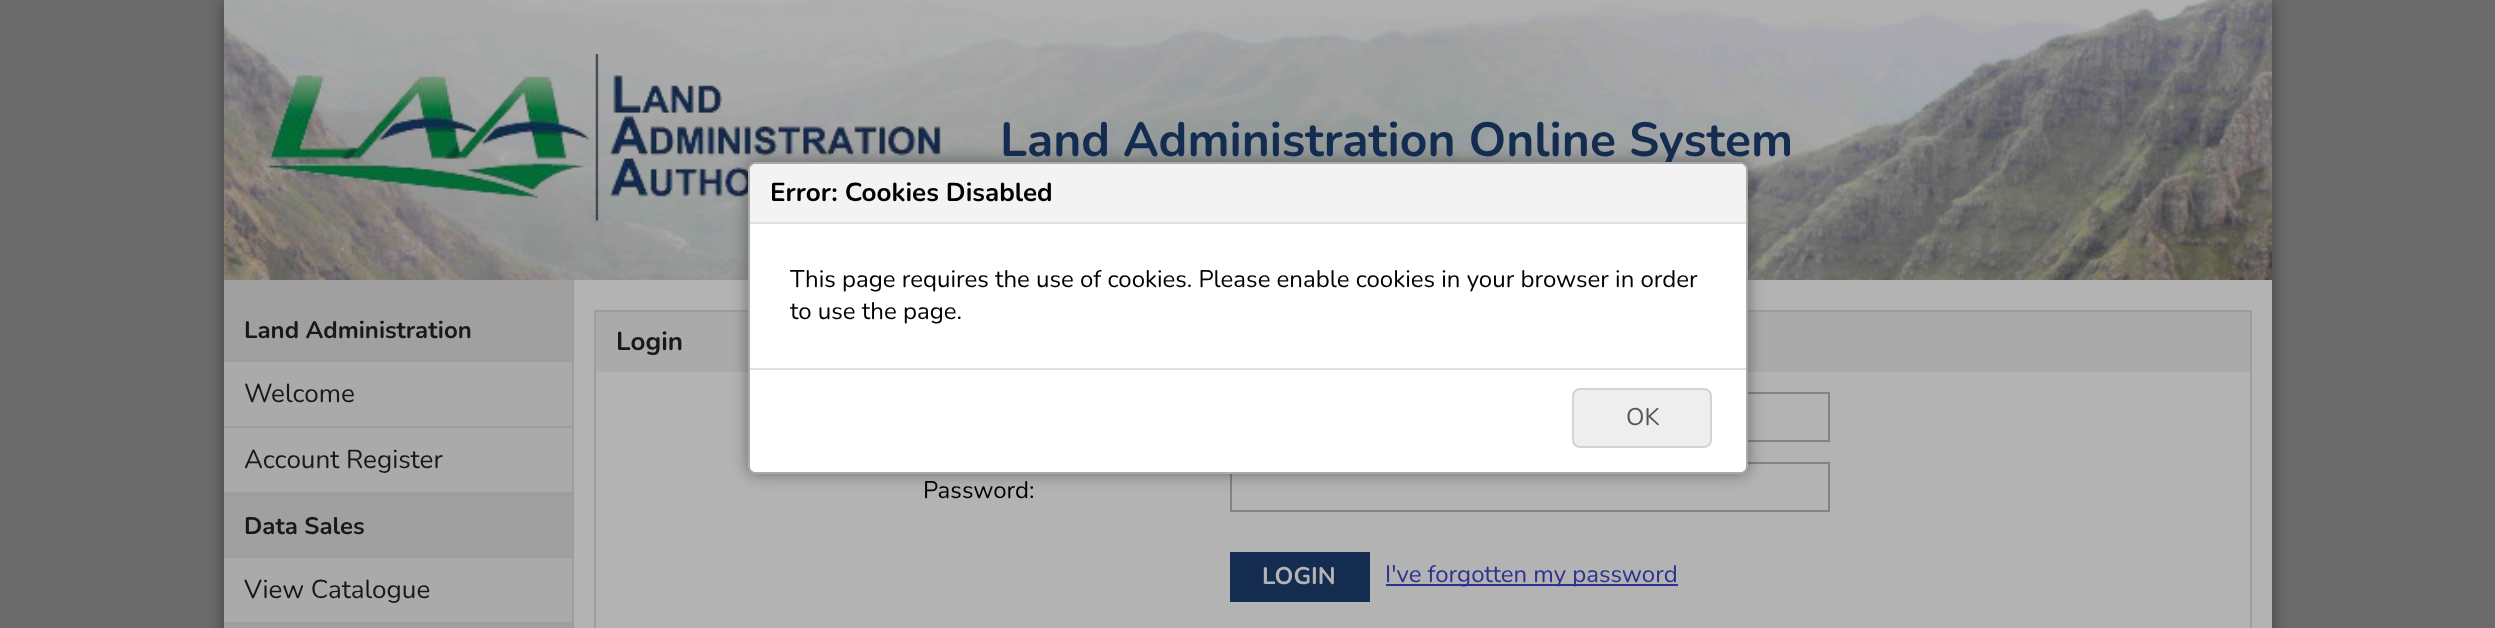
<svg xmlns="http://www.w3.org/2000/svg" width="2495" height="628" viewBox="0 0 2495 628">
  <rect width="100%" height="100%" fill="#6b6b6b"/>
  <path d="M224 0h2048v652H224z" fill="#00000066" filter="blur(8px)"/>
  <path d="M574 280h1698v348H574z" fill="#b3b3b3"/>
  <image x="224" y="0" width="2048" height="280" href="img/1.png"/>
  <image x="265" y="54" width="676" height="168" href="img/2.png"/>
  <path d="M224 280h348v348H224z" fill="#a0a0a0"/>
  <path d="M572 280h2v348H572z" fill="#9d9d9d"/>
  <path d="M224 360h348v2H224z" fill="#9d9d9d"/>
  <path d="M224 362h348v130H224z" fill="#aaa"/>
  <path d="M224 492h348v4H224z" fill="#9d9d9d"/>
  <path d="M224 426h348v2H224z" fill="#9d9d9d"/>
  <path d="M224 556h348v2H224z" fill="#9d9d9d"/>
  <path d="M224 558h348v64H224z" fill="#aaa"/>
  <path d="M224 622h348v4H224z" fill="#9d9d9d"/>
  <path d="M595 311h1656v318H595z" fill="none" stroke="#9d9d9d" stroke-width="2"/>
  <path d="M596 312h1654v60H596z" fill="#aaa"/>
  <path d="M1231 393h598v48H1231z" fill="none" stroke="#838383" stroke-width="2"/>
  <path d="M1231 463h598v48H1231z" fill="none" stroke="#838383" stroke-width="2"/>
  <path d="M1230 552h140v50H1230z" fill="#152c51"/>
  <path d="M1386 584h292v2H1386z" fill="#2c328f"/>
  <rect x="748" y="162" width="1000" height="312" rx="8" fill="#00000066" filter="blur(8px)"/>
  <text x="1000" y="156" font-family="Nunito" font-size="48" font-weight="bold" fill="#152c51">Land Administration Online System</text>
  <text x="244" y="338" font-family="Nunito" font-size="24" font-weight="bold" fill="#181818">Land Administration</text>
  <g font-family="Nunito" font-size="26" fill="#181818">
    <text x="244" y="402">Welcome</text>
    <text x="244" y="468">Account Register</text>
  </g>
  <text x="244" y="534" font-family="Nunito" font-size="24" font-weight="bold" fill="#181818">Data Sales</text>
  <text x="244" y="598" font-family="Nunito" font-size="26" fill="#181818">View Catalogue</text>
  <text x="616" y="350" font-family="Nunito" font-size="26" font-weight="bold" fill="#181818">Login</text>
  <text x="923" y="498" font-family="Nunito" font-size="24" fill="#000">Password:</text>
  <text x="1262" y="584" font-family="Nunito" font-size="24" font-weight="bold" fill="#b3b3b3">LOGIN</text>
  <text x="1385" y="582" font-family="Nunito" font-size="24" fill="#2c328f">I've forgotten my password</text>
  <rect x="749" y="163" width="998" height="310" rx="7" fill="#fff" stroke="#aaa" stroke-width="2"/>
  <path d="M756 164H1740C1743.5 164 1746 166.5 1746 170V224H750V170C750 166.5 752.5 164 756 164Z" fill="#f3f3f3"/>
  <path d="M750 222h996v2H750z" fill="#e0e0e0"/>
  <text x="770" y="201" font-family="Nunito" font-size="26" font-weight="bold" fill="#000">Error: Cookies Disabled</text>
  <g font-family="Nunito" font-size="24" fill="#000">
    <text x="790" y="287">This page requires the use of cookies. Please enable cookies in your browser in order</text>
    <text x="790" y="319">to use the page.</text>
  </g>
  <path d="M750 370H1746V466C1746 469.5 1743.5 472 1740 472H756C752.5 472 750 469.5 750 466Z" fill="#fff"/>
  <path d="M750 368h996v2H750z" fill="#e0e0e0"/>
  <rect x="1573" y="389" width="138" height="58" rx="7" fill="#eee" stroke="#d3d3d3" stroke-width="2"/>
  <text x="1626" y="425" font-family="Nunito" font-size="24" fill="#555">OK</text>
</svg>
